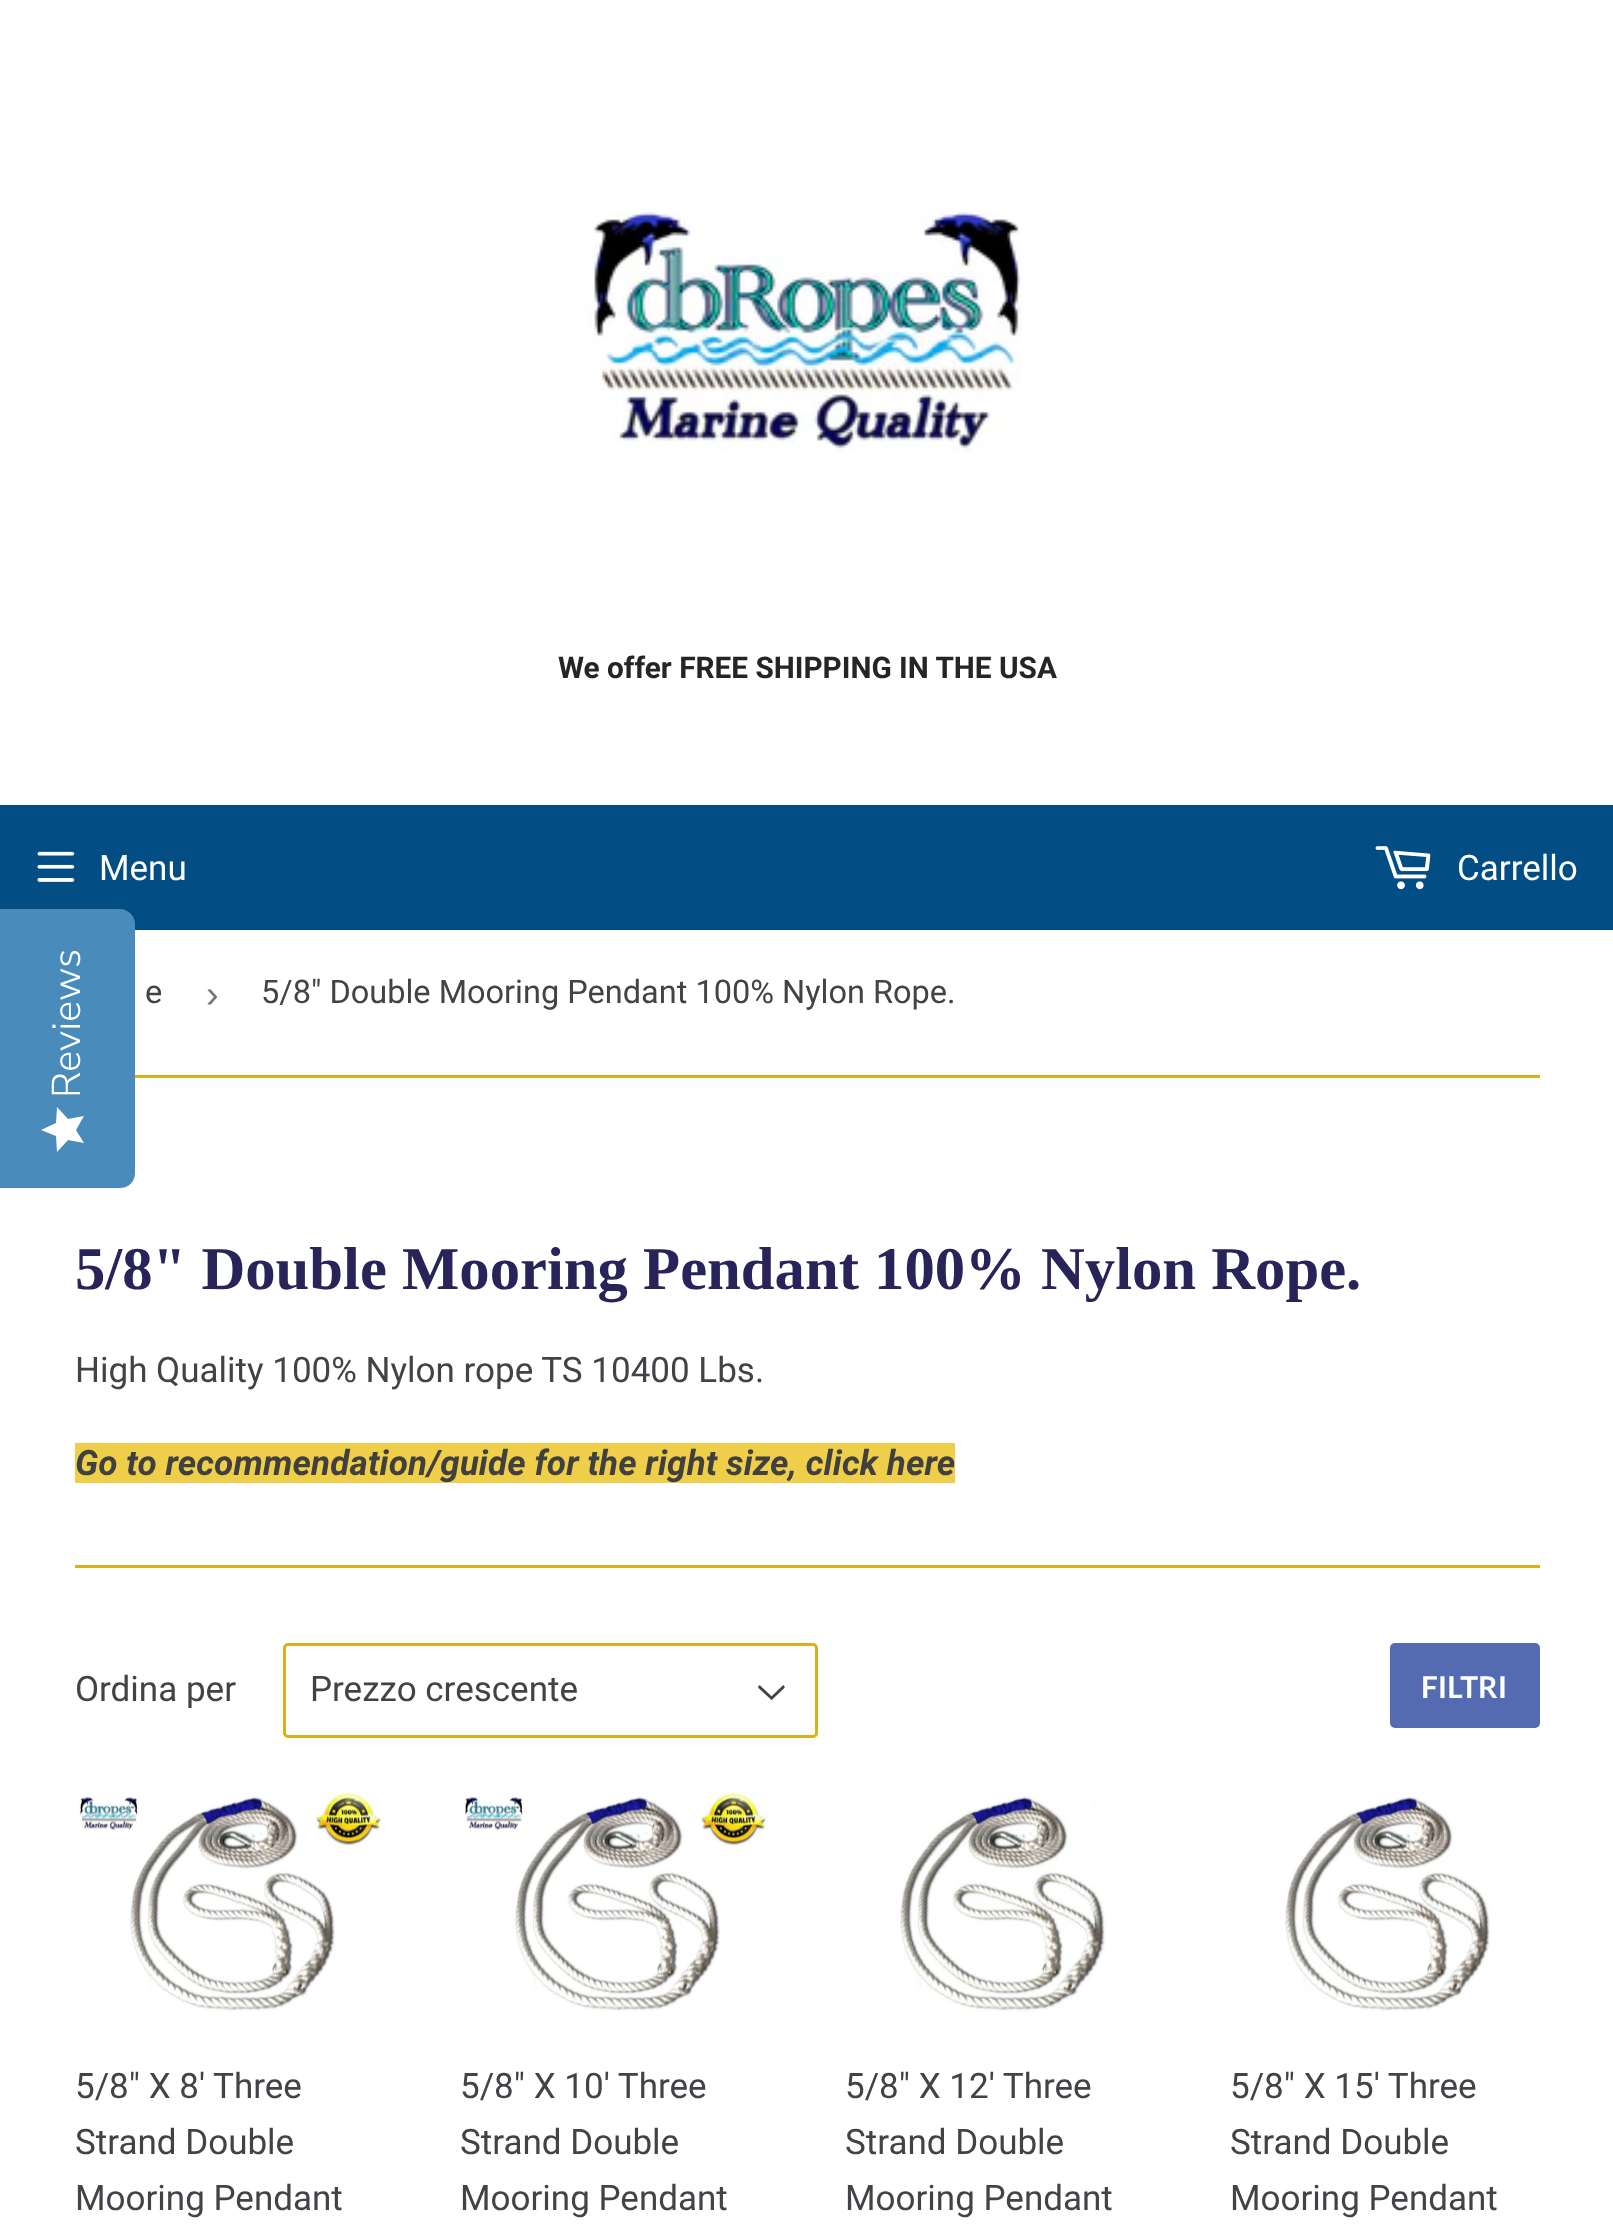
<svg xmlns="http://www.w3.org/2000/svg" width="1613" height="2231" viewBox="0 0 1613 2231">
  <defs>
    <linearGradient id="g1" gradientUnits="userSpaceOnUse" x1="41" y1="1152" x2="41" y2="1107"><stop offset="1" stop-color="#fefefe"/><stop offset="1" stop-color="#eaeaea"/></linearGradient>
  </defs>
  <rect width="100%" height="100%" fill="#fff"/>
  <image x="582" y="211" width="440" height="242" href="img/1.png"/>
  <path d="M0 805h1613v125H0z" fill="#024d84"/>
  <image x="37" y="851" width="38" height="31" href="img/2.png"/>
  <image x="1375" y="846" width="56" height="44" href="img/3.png"/>
  <path d="M0 1188V909H120C128 909 135 916 135 924V1173C135 1182 128 1188 120 1188Z" fill="#498cbc"/>
  <path d="M76 1130L84 1116L68 1119L57 1107L56 1123L41 1130L56 1136L57 1152L68 1140L84 1143Z" fill="url(#g1)"/>
  <path d="M135 1075h1405v3H135z" fill="#d9b11f"/>
  <path d="M75 1443h880v40H75z" fill="#efce4a"/>
  <path d="M75 1565h1465v3H75z" fill="#d9b11f"/>
  <image x="758" y="1685" width="27" height="15" href="img/4.png"/>
  <rect x="284.5" y="1644.5" width="532" height="92" rx="3.5" fill="none" stroke="#d9b11f" stroke-width="3"/>
  <rect x="1390" y="1643" width="150" height="85" rx="5" fill="#556bb1"/>
  <image x="78" y="1792" width="307" height="219" href="img/5.png"/>
  <image x="463" y="1792" width="307" height="219" href="img/5.png"/>
  <image x="900" y="1795" width="207" height="217" href="img/6.png"/>
  <image x="1285" y="1795" width="207" height="217" href="img/7.png"/>
  <text x="558" y="678" font-family="Roboto" font-size="29.75" font-weight="bold" fill="#262424">We offer FREE SHIPPING IN THE USA</text>
  <g font-family="Roboto" font-size="35" fill="#fff">
    <text x="99" y="880">Menu</text>
    <text x="1457" y="880">Carrello</text>
  </g>
  <text x="80" y="1098" transform="rotate(-90 80 1098)" font-family="Nunito Sans" font-size="40" font-weight="300" fill="#fff">Reviews</text>
  <text x="145" y="1003" font-family="Roboto" font-size="32.5" fill="#424346">e</text>
  <text x="206" y="1007" font-family="Liberation Sans" font-size="38" fill="#767676">›</text>
  <text x="261" y="1003" font-family="Roboto" font-size="32.5" fill="#424346">5/8" Double Mooring Pendant 100% Nylon Rope.</text>
  <text x="75" y="1289" font-family="Liberation Serif" font-size="60.7" font-weight="bold" fill="#282358">5/8" Double Mooring Pendant 100% Nylon Rope.</text>
  <text x="75" y="1382" font-family="Roboto" font-size="35" fill="#424346">High Quality 100% Nylon rope TS 10400 Lbs.</text>
  <text x="75" y="1475" font-family="Roboto" font-size="35" font-weight="bold" font-style="italic" fill="#404040">Go to recommendation/guide for the right size, click here</text>
  <g font-family="Roboto" font-size="35" fill="#424346">
    <text x="75" y="1701">Ordina per</text>
    <text x="310" y="1701">Prezzo crescente</text>
  </g>
  <text x="1421" y="1698" font-family="Lato" font-size="30" font-weight="bold" fill="#fff">FILTRI</text>
  <g font-family="Roboto" font-size="35" fill="#424346">
    <text x="75" y="2098">5/8" X 8' Three</text>
    <text x="75" y="2154">Strand Double</text>
    <text x="75" y="2210">Mooring Pendant</text>
    <text x="460" y="2098">5/8" X 10' Three</text>
    <text x="460" y="2154">Strand Double</text>
    <text x="460" y="2210">Mooring Pendant</text>
    <text x="845" y="2098">5/8" X 12' Three</text>
    <text x="845" y="2154">Strand Double</text>
    <text x="845" y="2210">Mooring Pendant</text>
    <text x="1230" y="2098">5/8" X 15' Three</text>
    <text x="1230" y="2154">Strand Double</text>
    <text x="1230" y="2210">Mooring Pendant</text>
  </g>
</svg>
